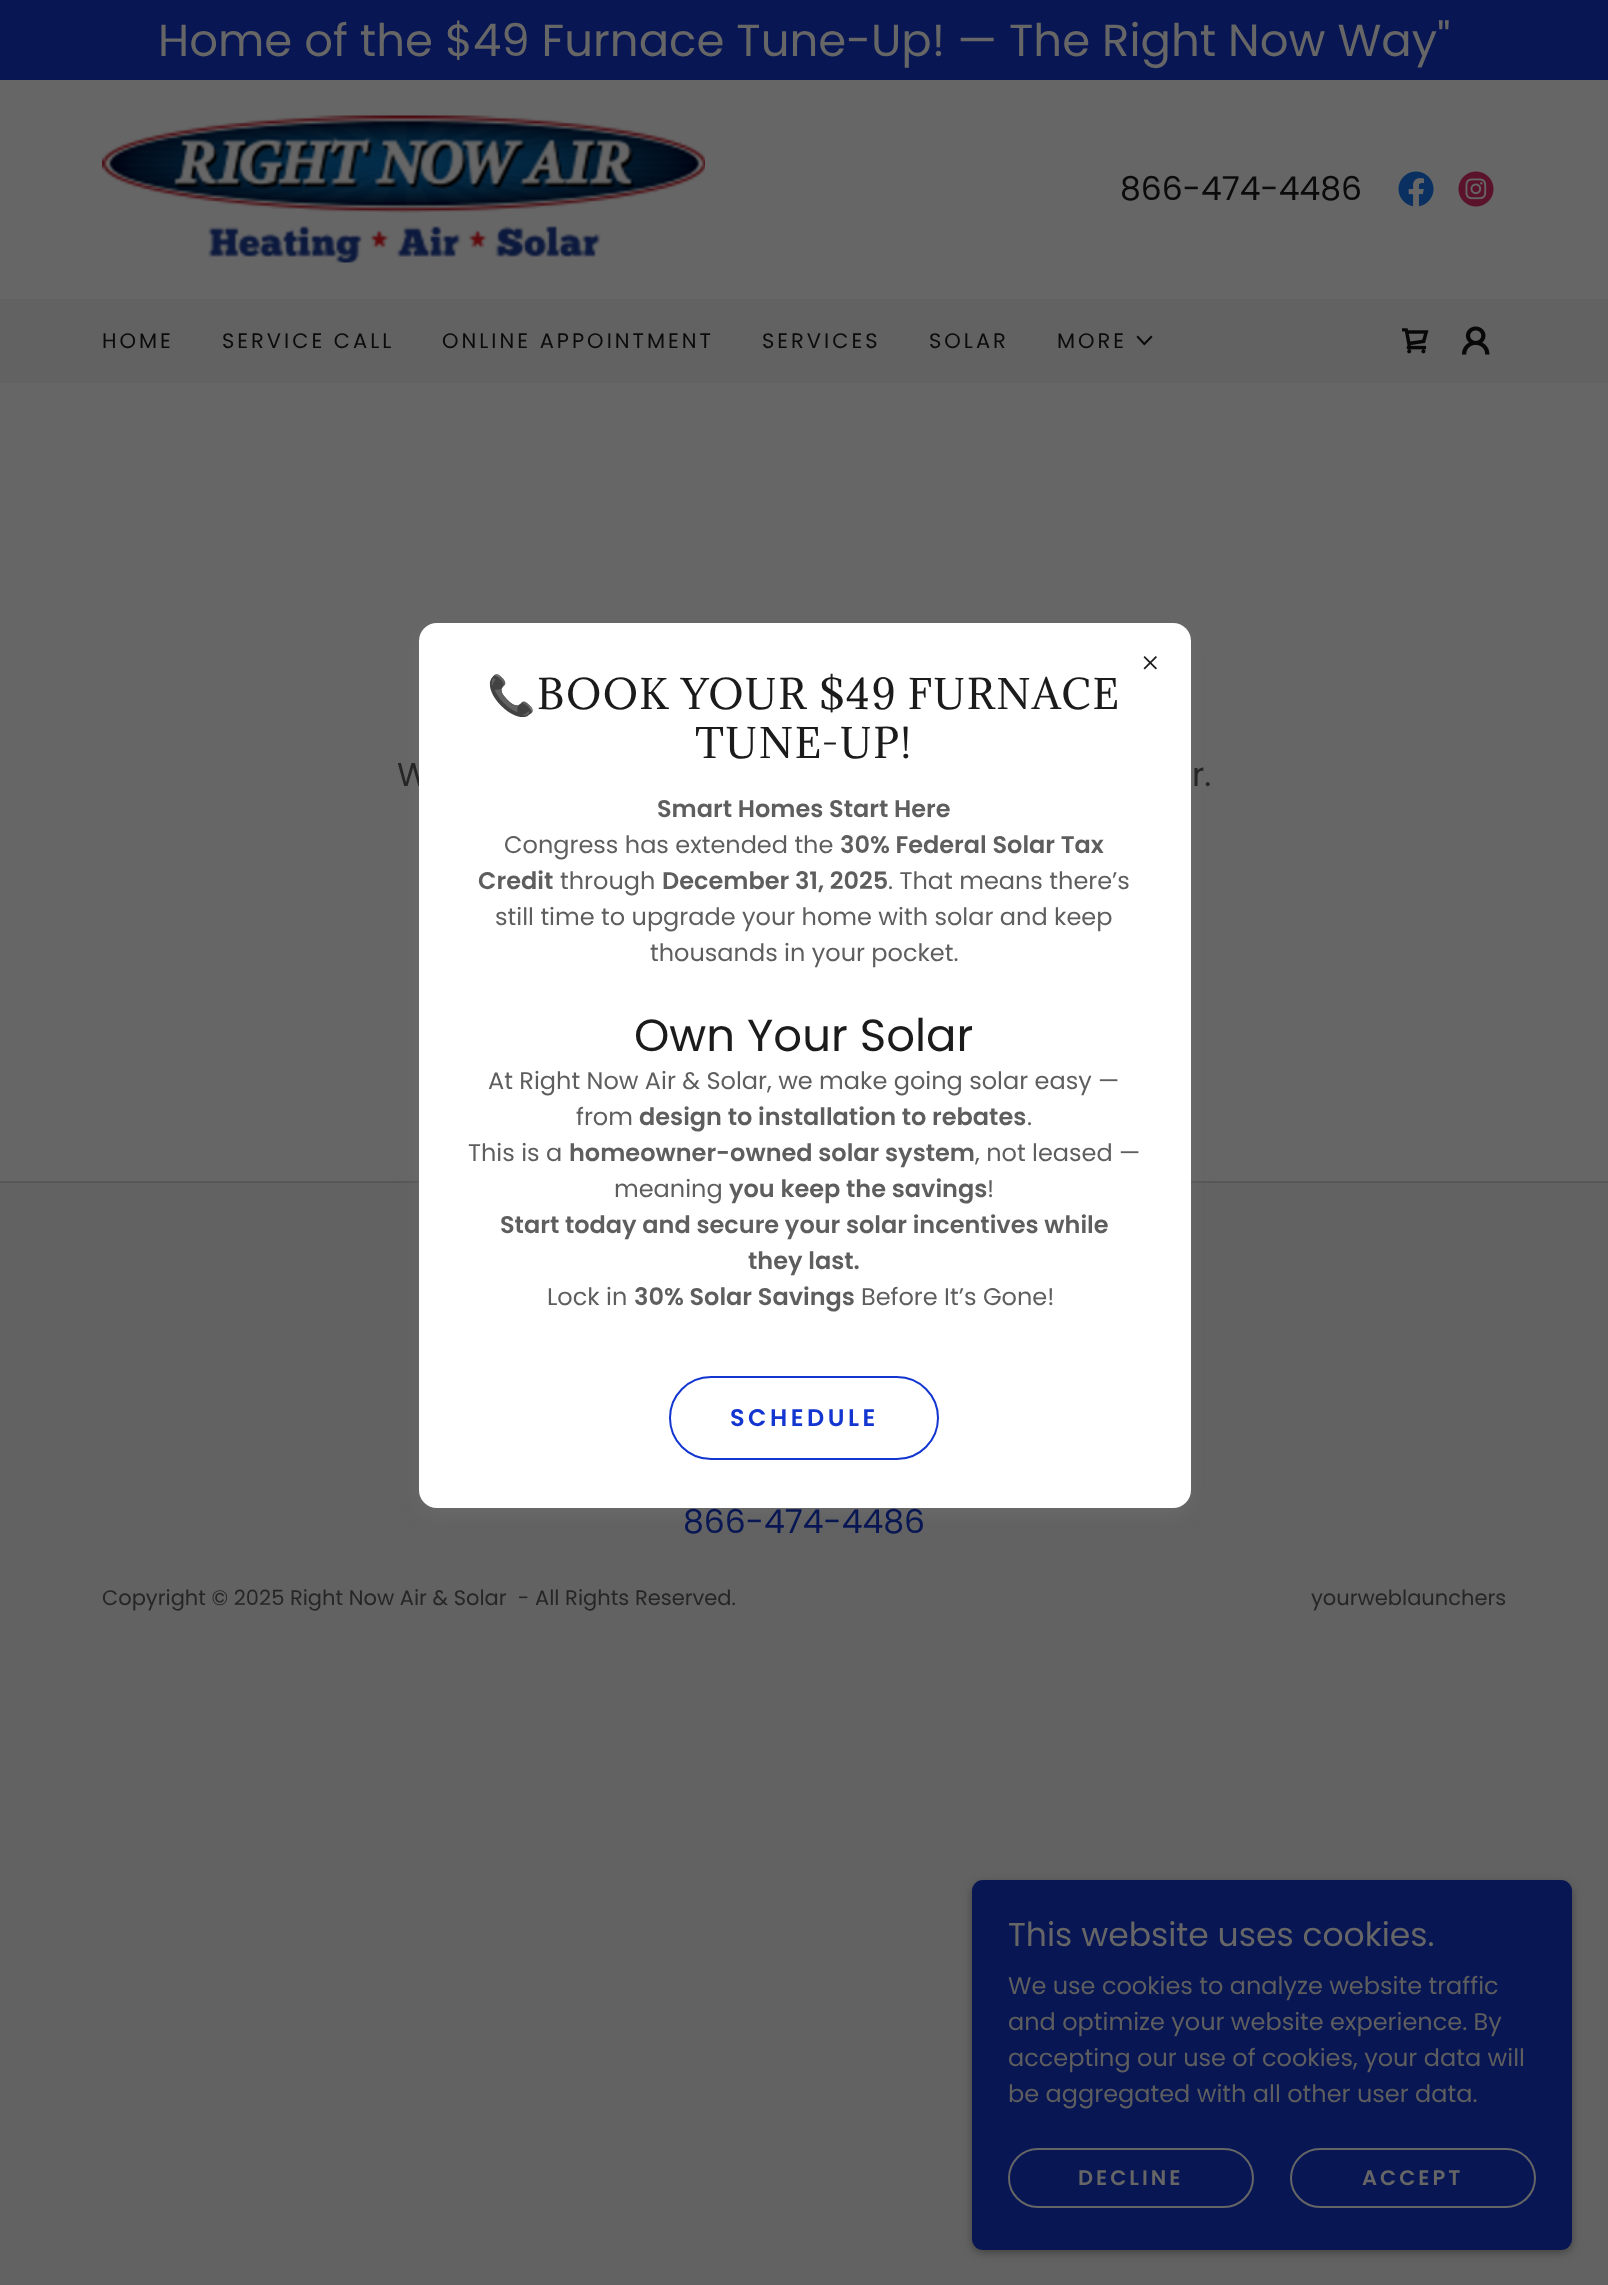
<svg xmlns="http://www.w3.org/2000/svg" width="1608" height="2285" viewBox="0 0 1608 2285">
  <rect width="100%" height="100%" fill="#626262"/>
  <path d="M0 80h1608v219H0z" fill="#666"/>
  <path d="M0 0h1608v80H0z" fill="#081654"/>
  <image x="102" y="115" width="603" height="148" href="img/1.png"/>
  <image x="1398" y="171" width="36" height="36" href="img/2.png"/>
  <image x="1458" y="171" width="36" height="36" href="img/3.png"/>
  <image x="1136" y="335" width="17" height="11" href="img/4.png"/>
  <image x="1402" y="328" width="27" height="26" href="img/5.png"/>
  <image x="1462" y="326" width="28" height="29" href="img/6.png"/>
  <path d="M0 383h1608v798H0z" fill="#666"/>
  <path d="M0 1181h1608v2H0z" fill="#575757"/>
  <rect x="419" y="629" width="772" height="885" rx="18" fill="#75757566" filter="blur(9px)"/>
  <rect x="972" y="1883" width="600" height="370" rx="11" fill="#0000004d" filter="blur(4.5px)"/>
  <rect x="972" y="1880" width="600" height="370" rx="11" fill="#081654"/>
  <rect x="1009" y="2149" width="244" height="58" rx="29" fill="none" stroke="#666" stroke-width="2"/>
  <rect x="1291" y="2149" width="244" height="58" rx="29" fill="none" stroke="#666" stroke-width="2"/>
  <text x="158" y="56" font-family="Poppins" font-size="45" fill="#666">Home of the $49 Furnace Tune-Up! — The Right Now Way"</text>
  <text x="1120" y="200" font-family="Poppins" font-size="33" fill="#0b0b0b">866-474-4486</text>
  <g font-family="Poppins" font-size="21" letter-spacing="3" fill="#0b0b0b">
    <text x="102" y="348">HOME</text>
    <text x="222" y="348">SERVICE CALL</text>
    <text x="442" y="348">ONLINE APPOINTMENT</text>
    <text x="762" y="348">SERVICES</text>
    <text x="929" y="348">SOLAR</text>
    <text x="1057" y="348">MORE</text>
  </g>
  <text x="397" y="786" font-family="Poppins" font-size="33" fill="#262626">W</text>
  <rect x="419" y="623" width="772" height="885" rx="18" fill="#fff"/>
  <image x="1143" y="656" width="14" height="14" href="img/7.png"/>
  <rect x="670" y="1377" width="268" height="82" rx="41" fill="none" stroke="#1336d1" stroke-width="2"/>
  <text x="730" y="1426" font-family="Poppins" font-size="24" font-weight="600" letter-spacing="3.5" fill="#1336d1">SCHEDULE</text>
  <text x="861" y="1305" font-family="Poppins" font-size="24" fill="#5e5e5e">Before It’s Gone!</text>
  <text x="634" y="1305" font-family="Poppins" font-size="24" font-weight="600" fill="#5e5e5e">30% Solar Savings</text>
  <text x="547" y="1305" font-family="Poppins" font-size="24" fill="#5e5e5e">Lock in</text>
  <g font-family="Poppins" font-size="24" font-weight="600" fill="#5e5e5e">
    <text x="748" y="1269">they last.</text>
    <text x="500" y="1233">Start today and secure your solar incentives while</text>
  </g>
  <text x="987" y="1197" font-family="Poppins" font-size="24" fill="#5e5e5e">!</text>
  <text x="729" y="1197" font-family="Poppins" font-size="24" font-weight="600" fill="#5e5e5e">you keep the savings</text>
  <g font-family="Poppins" font-size="24" fill="#5e5e5e">
    <text x="614" y="1197">meaning</text>
    <text x="975" y="1161">, not leased —</text>
  </g>
  <text x="569" y="1161" font-family="Poppins" font-size="24" font-weight="600" fill="#5e5e5e">homeowner-owned solar system</text>
  <g font-family="Poppins" font-size="24" fill="#5e5e5e">
    <text x="468" y="1161">This is a</text>
    <text x="1027" y="1125">.</text>
  </g>
  <text x="639" y="1125" font-family="Poppins" font-size="24" font-weight="600" fill="#5e5e5e">design to installation to rebates</text>
  <g font-family="Poppins" font-size="24" fill="#5e5e5e">
    <text x="576" y="1125">from</text>
    <text x="488" y="1089">At Right Now Air &amp; Solar, we make going solar easy —</text>
  </g>
  <text x="634" y="1051" font-family="Poppins" font-size="45" fill="#1b1b1b">Own Your Solar</text>
  <g font-family="Poppins" font-size="24" fill="#5e5e5e">
    <text x="650" y="961">thousands in your pocket.</text>
    <text x="495" y="925">still time to upgrade your home with solar and keep</text>
    <text x="888" y="889">. That means there’s</text>
  </g>
  <text x="662" y="889" font-family="Poppins" font-size="24" font-weight="600" fill="#5e5e5e">December 31, 2025</text>
  <text x="560" y="889" font-family="Poppins" font-size="24" fill="#5e5e5e">through</text>
  <g font-family="Poppins" font-size="24" font-weight="600" fill="#5e5e5e">
    <text x="478" y="889">Credit</text>
    <text x="840" y="853">30% Federal Solar Tax</text>
  </g>
  <text x="504" y="853" font-family="Poppins" font-size="24" fill="#5e5e5e">Congress has extended the</text>
  <text x="657" y="817" font-family="Poppins" font-size="24" font-weight="600" fill="#5e5e5e">Smart Homes Start Here</text>
  <g font-family="Adamina" font-size="39" letter-spacing="1.5" fill="#1b1b1b">
    <text x="695" y="758">TUNE-UP!</text>
    <text x="537" y="709">BOOK YOUR $49 FURNACE</text>
  </g>
  <text x="487" y="709" font-family="Noto Color Emoji" font-size="39" letter-spacing="1.5" fill="#1b1b1b">📞</text>
  <text x="1192" y="786" font-family="Poppins" font-size="33" fill="#262626">r.</text>
  <text x="683" y="1533" font-family="Poppins" font-size="33" fill="#081654">866-474-4486</text>
  <g font-family="Poppins" font-size="21" fill="#262626">
    <text x="102" y="1605" xml:space="preserve">Copyright © 2025 Right Now Air &amp; Solar  - All Rights Reserved.</text>
    <text x="1311" y="1605">yourweblaunchers</text>
  </g>
  <text x="1008" y="1946" font-family="Poppins" font-size="33" fill="#666">This website uses cookies.</text>
  <g font-family="Poppins" font-size="24" fill="#5e5e5e">
    <text x="1008" y="1994">We use cookies to analyze website traffic</text>
    <text x="1008" y="2030">and optimize your website experience. By</text>
    <text x="1008" y="2066">accepting our use of cookies, your data will</text>
    <text x="1008" y="2102">be aggregated with all other user data.</text>
  </g>
  <g font-family="Poppins" font-size="21" font-weight="600" letter-spacing="3" fill="#666">
    <text x="1078" y="2185">DECLINE</text>
    <text x="1362" y="2185">ACCEPT</text>
  </g>
</svg>
